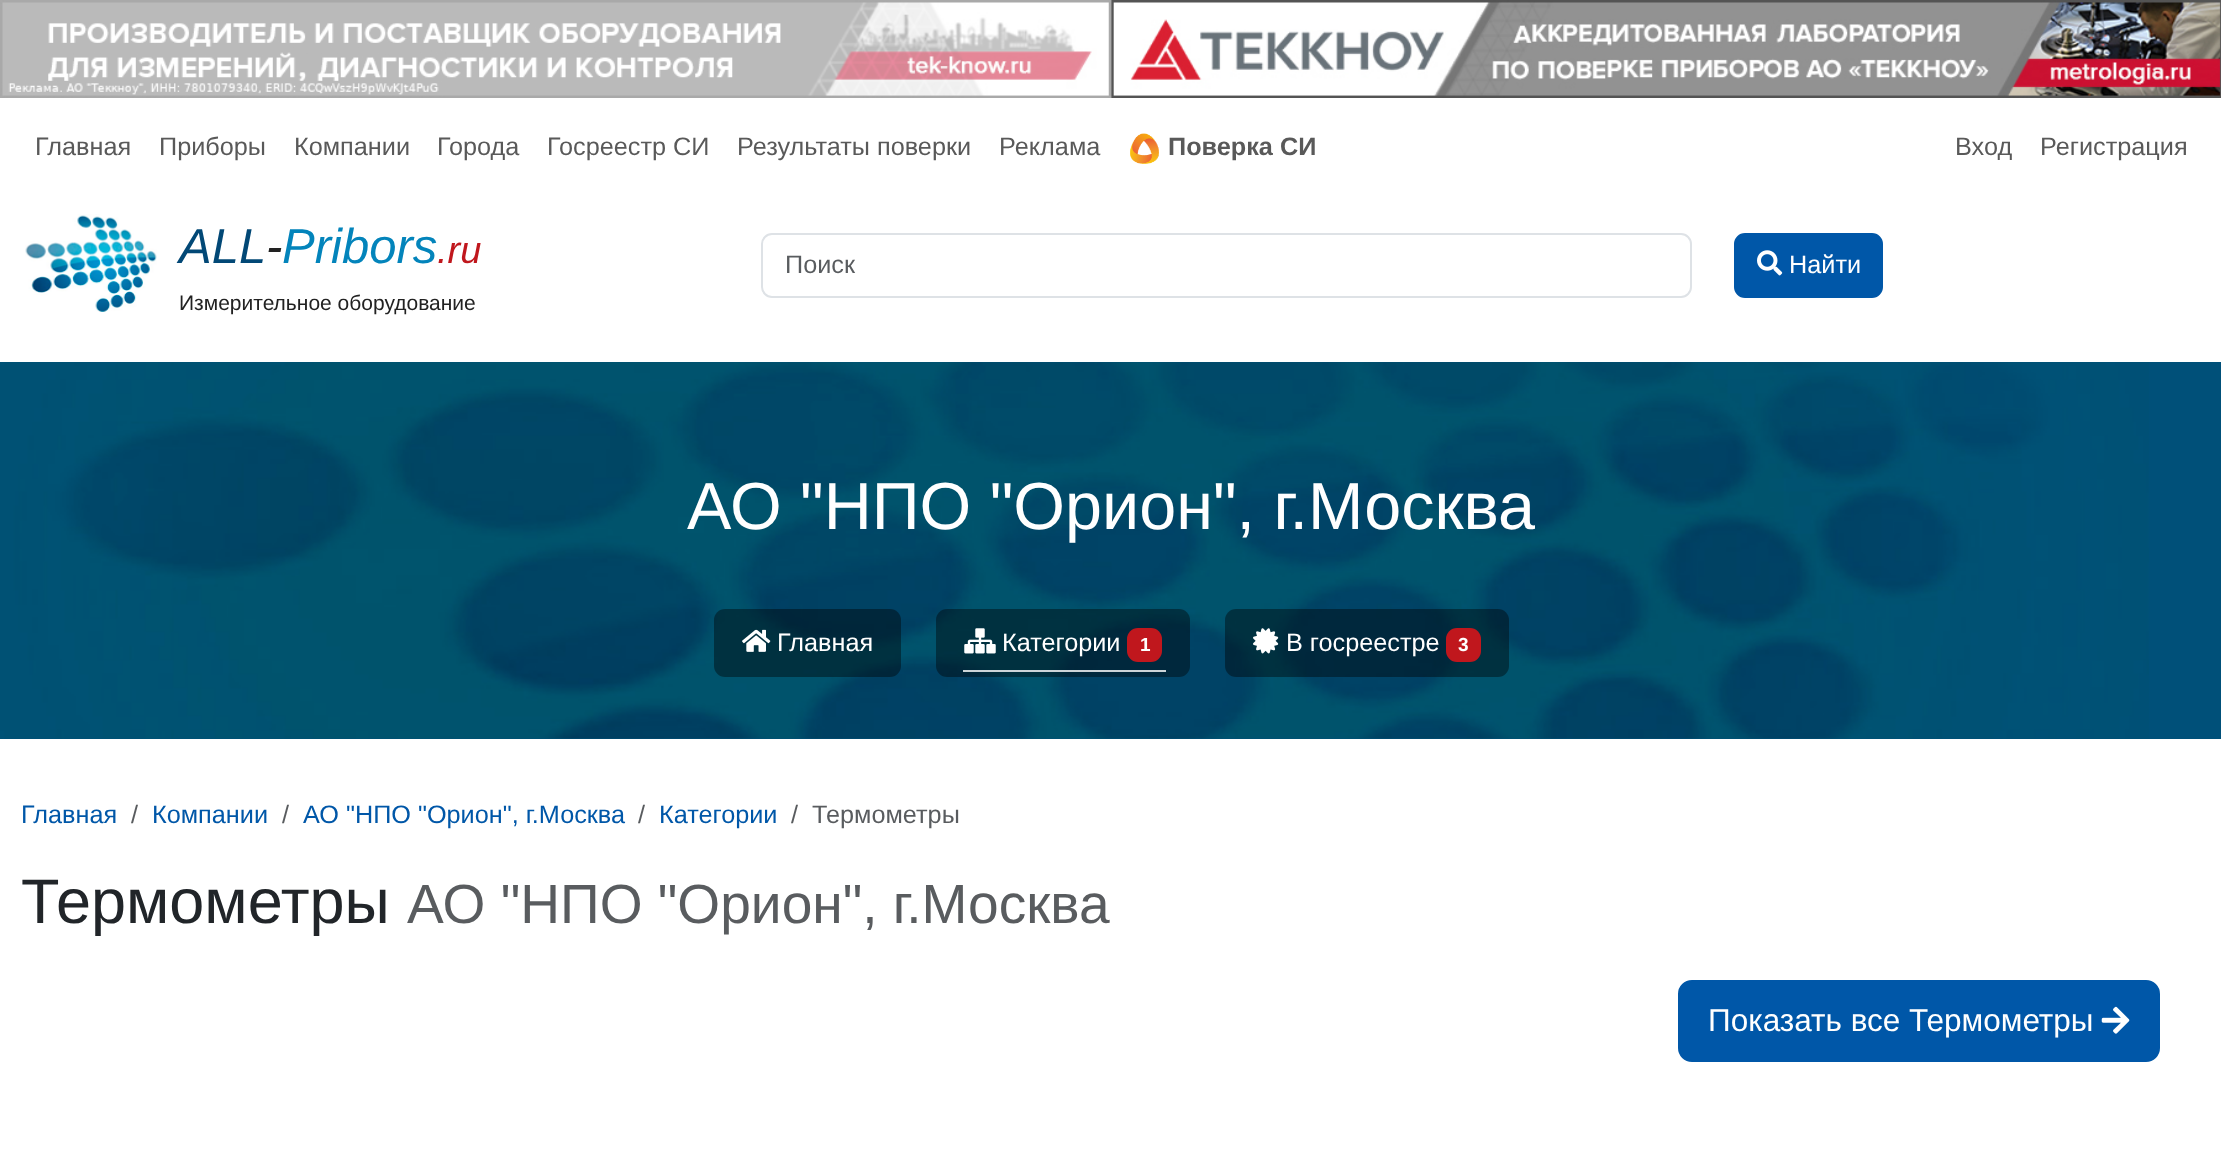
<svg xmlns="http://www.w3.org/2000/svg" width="2221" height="1154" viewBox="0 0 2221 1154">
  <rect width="100%" height="100%" fill="#fff"/>
  <image x="1111" y="0" width="1110" height="98" href="img/2.png"/>
  <image x="0" y="0" width="1112" height="98" href="img/1.png"/>
  <image x="1130" y="133" width="29" height="31" href="img/3.png"/>
  <image x="25" y="214" width="132" height="98" href="img/4.png"/>
  <rect x="762" y="234" width="929" height="63" rx="10" fill="none" stroke="#dee2e6" stroke-width="2"/>
  <rect x="1735" y="234" width="147" height="63" rx="10" fill="#0057a8" stroke="#0057a8" stroke-width="2"/>
  <image x="1757" y="250" width="26" height="26" href="img/5.png"/>
  <path d="M0 362h2221v377H0z" fill="#005079"/>
  <image x="0" y="362" width="2149" height="377" href="img/6.png"/>
  <rect x="714" y="609" width="187" height="68" rx="11" fill="#00000066"/>
  <image x="742" y="629" width="29" height="23" href="img/7.png"/>
  <rect x="936" y="609" width="254" height="68" rx="11" fill="#00000066"/>
  <image x="964" y="628" width="32" height="26" href="img/8.png"/>
  <rect x="1127" y="628" width="35" height="34" rx="11" fill="#c0171d"/>
  <path d="M963 670h203v2H963z" fill="#ffffffcc"/>
  <rect x="1225" y="609" width="284" height="68" rx="11" fill="#00000066"/>
  <image x="1253" y="628" width="26" height="26" href="img/9.png"/>
  <rect x="1446" y="628" width="35" height="34" rx="11" fill="#c0171d"/>
  <rect x="1679" y="981" width="480" height="80" rx="13" fill="#0057a8" stroke="#0057a8" stroke-width="2"/>
  <image x="2101" y="1006" width="29" height="28" href="img/10.png"/>
  <g font-family="Liberation Sans" font-size="25.25" fill="#595959">
    <text x="35" y="155">Главная</text>
    <text x="159" y="155">Приборы</text>
    <text x="294" y="155">Компании</text>
    <text x="437" y="155">Города</text>
    <text x="547" y="155">Госреестр СИ</text>
    <text x="737" y="155">Результаты поверки</text>
    <text x="999" y="155">Реклама</text>
  </g>
  <text x="1168" y="155" font-family="Liberation Sans" font-size="25.25" font-weight="bold" fill="#595959">Поверка СИ</text>
  <g font-family="Liberation Sans" font-size="25.25" fill="#595959">
    <text x="1955" y="155">Вход</text>
    <text x="2040" y="155">Регистрация</text>
  </g>
  <text x="179" y="263" font-family="Liberation Sans" font-size="49" font-style="italic" fill="#024876">ALL</text>
  <text x="266" y="263" font-family="Liberation Sans" font-size="49" font-style="italic" fill="#222">-</text>
  <text x="282" y="263" font-family="Liberation Sans" font-size="49" font-style="italic" fill="#0384bb">Pribors</text>
  <text x="437" y="263" font-family="Liberation Sans" font-size="38" font-style="italic" fill="#c0171d">.ru</text>
  <text x="179" y="310" font-family="Liberation Sans" font-size="21" fill="#222">Измерительное оборудование</text>
  <text x="785" y="273" font-family="Liberation Sans" font-size="25.25" fill="#595c5f">Поиск</text>
  <text x="1789" y="273" font-family="Liberation Sans" font-size="25.25" fill="#fff">Найти</text>
  <text x="687" y="529" font-family="Liberation Sans" font-size="66.5" fill="#fff">АО "НПО "Орион", г.Москва</text>
  <g font-family="Liberation Sans" font-size="25.25" fill="#fff">
    <text x="777" y="651">Главная</text>
    <text x="1002" y="651">Категории</text>
  </g>
  <text x="1140" y="651" font-family="Liberation Sans" font-size="19" font-weight="bold" fill="#fff">1</text>
  <text x="1286" y="651" font-family="Liberation Sans" font-size="25.25" fill="#fff">В госреестре</text>
  <text x="1458" y="651" font-family="Liberation Sans" font-size="19" font-weight="bold" fill="#fff">3</text>
  <text x="21" y="823" font-family="Liberation Sans" font-size="25.25" fill="#0057a8">Главная</text>
  <text x="131" y="823" font-family="Liberation Sans" font-size="25.25" fill="#595c5f">/</text>
  <text x="152" y="823" font-family="Liberation Sans" font-size="25.25" fill="#0057a8">Компании</text>
  <text x="282" y="823" font-family="Liberation Sans" font-size="25.25" fill="#595c5f">/</text>
  <text x="303" y="823" font-family="Liberation Sans" font-size="25.25" fill="#0057a8">АО "НПО "Орион", г.Москва</text>
  <text x="638" y="823" font-family="Liberation Sans" font-size="25.25" fill="#595c5f">/</text>
  <text x="659" y="823" font-family="Liberation Sans" font-size="25.25" fill="#0057a8">Категории</text>
  <g font-family="Liberation Sans" font-size="25.25" fill="#595c5f">
    <text x="791" y="823">/</text>
    <text x="812" y="823">Термометры</text>
  </g>
  <text x="21" y="923" font-family="Liberation Sans" font-size="63" fill="#212529">Термометры</text>
  <text x="407" y="923" font-family="Liberation Sans" font-size="55.1" fill="#595c5f">АО "НПО "Орион", г.Москва</text>
  <text x="1708" y="1031" font-family="Liberation Sans" font-size="31.5" fill="#fff">Показать все Термометры</text>
</svg>
